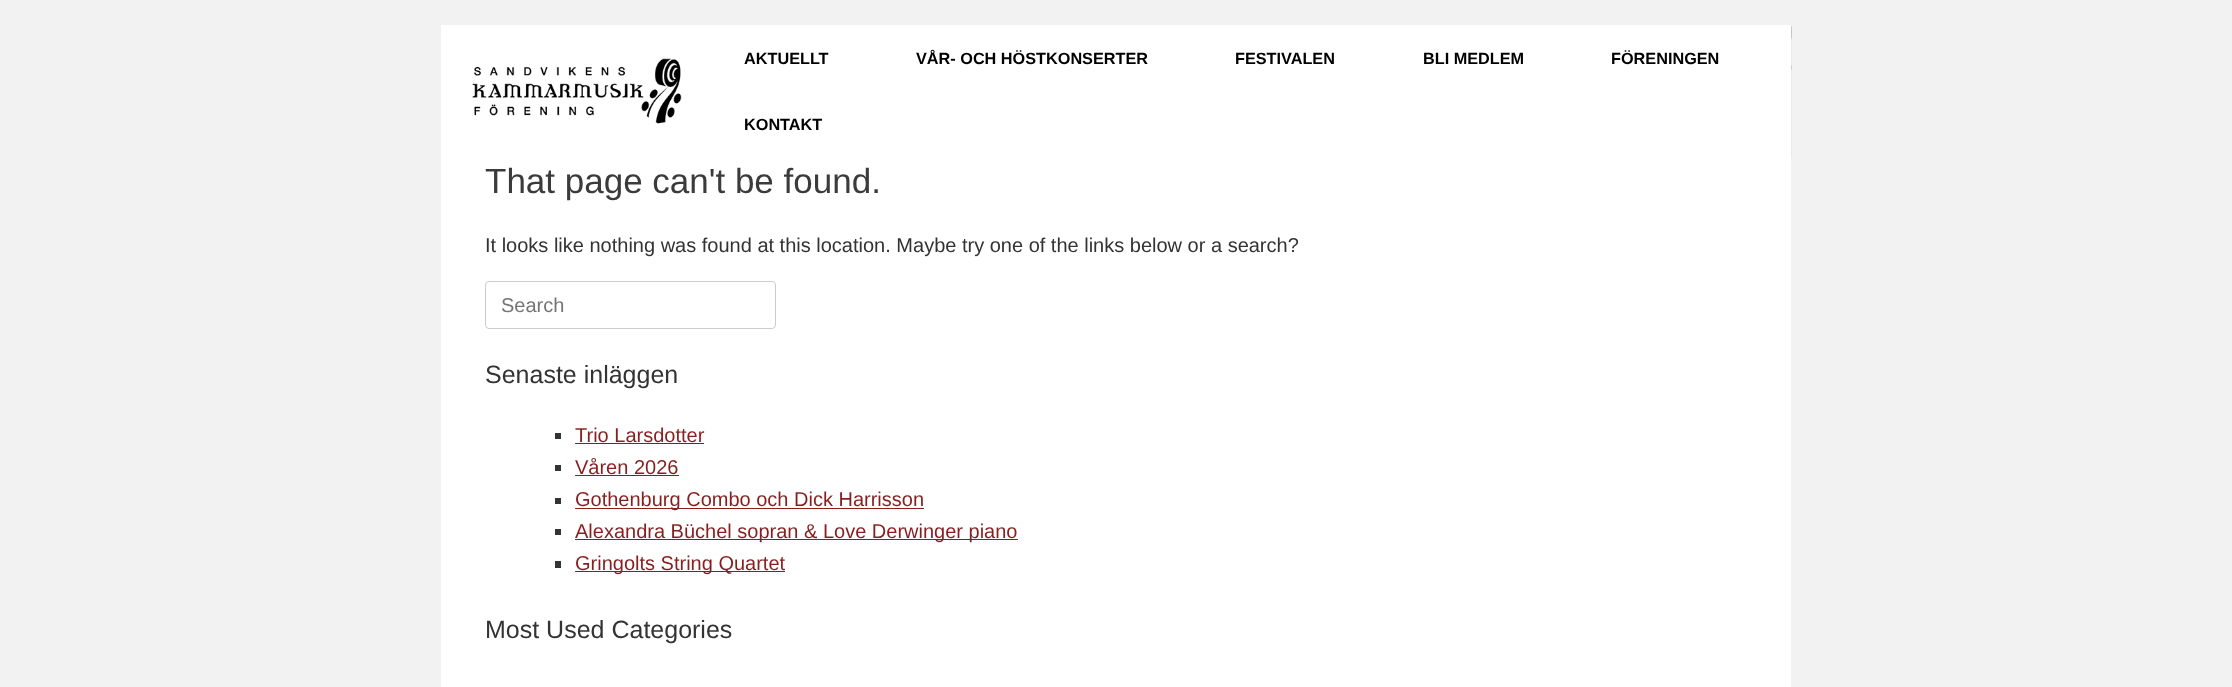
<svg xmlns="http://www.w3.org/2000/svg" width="2232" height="687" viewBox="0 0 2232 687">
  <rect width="100%" height="100%" fill="#f2f2f2"/>
  <image x="1791" y="25" width="1" height="133" href="img/1.png"/>
  <path d="M441 25h1350v662H441z" fill="#fff"/>
  <image x="472" y="58" width="210" height="66" href="img/2.png"/>
  <rect x="485.5" y="281.5" width="290" height="47" rx="3.5" fill="none" stroke="#ccc"/>
  <path d="M555 433h6v6H555z" fill="#333"/>
  <path d="M575 443h129v1H575z" fill="#871f1f"/>
  <path d="M555 465h6v6H555z" fill="#333"/>
  <path d="M575 475h104v1H575z" fill="#871f1f"/>
  <path d="M555 498h6v6H555z" fill="#333"/>
  <path d="M575 508h349v1H575z" fill="#871f1f"/>
  <path d="M555 529h6v6H555z" fill="#333"/>
  <path d="M575 539h443v1H575z" fill="#871f1f"/>
  <path d="M555 561h6v7H555z" fill="#333"/>
  <path d="M575 571h210v1H575z" fill="#871f1f"/>
  <g font-family="Liberation Sans" font-size="16.25" font-weight="bold" fill="#000">
    <text x="744" y="64">AKTUELLT</text>
    <text x="916" y="64">VÅR- OCH HÖSTKONSERTER</text>
    <text x="1235" y="64">FESTIVALEN</text>
    <text x="1423" y="64">BLI MEDLEM</text>
    <text x="1611" y="64">FÖRENINGEN</text>
    <text x="744" y="130">KONTAKT</text>
  </g>
  <text x="485" y="193" font-family="Liberation Sans" font-size="35" fill="#3b3b3b">That page can't be found.</text>
  <text x="485" y="252" font-family="Liberation Sans" font-size="20" fill="#333">It looks like nothing was found at this location. Maybe try one of the links below or a search?</text>
  <text x="501" y="312" font-family="Liberation Sans" font-size="20" fill="#757575">Search</text>
  <text x="485" y="383" font-family="Liberation Sans" font-size="25" fill="#333">Senaste inläggen</text>
  <g font-family="Liberation Sans" font-size="20" fill="#871f1f">
    <text x="575" y="442">Trio Larsdotter</text>
    <text x="575" y="474">Våren 2026</text>
    <text x="575" y="506">Gothenburg Combo och Dick Harrisson</text>
    <text x="575" y="538">Alexandra Büchel sopran &amp; Love Derwinger piano</text>
    <text x="575" y="570">Gringolts String Quartet</text>
  </g>
  <text x="485" y="638" font-family="Liberation Sans" font-size="25" fill="#333">Most Used Categories</text>
</svg>
